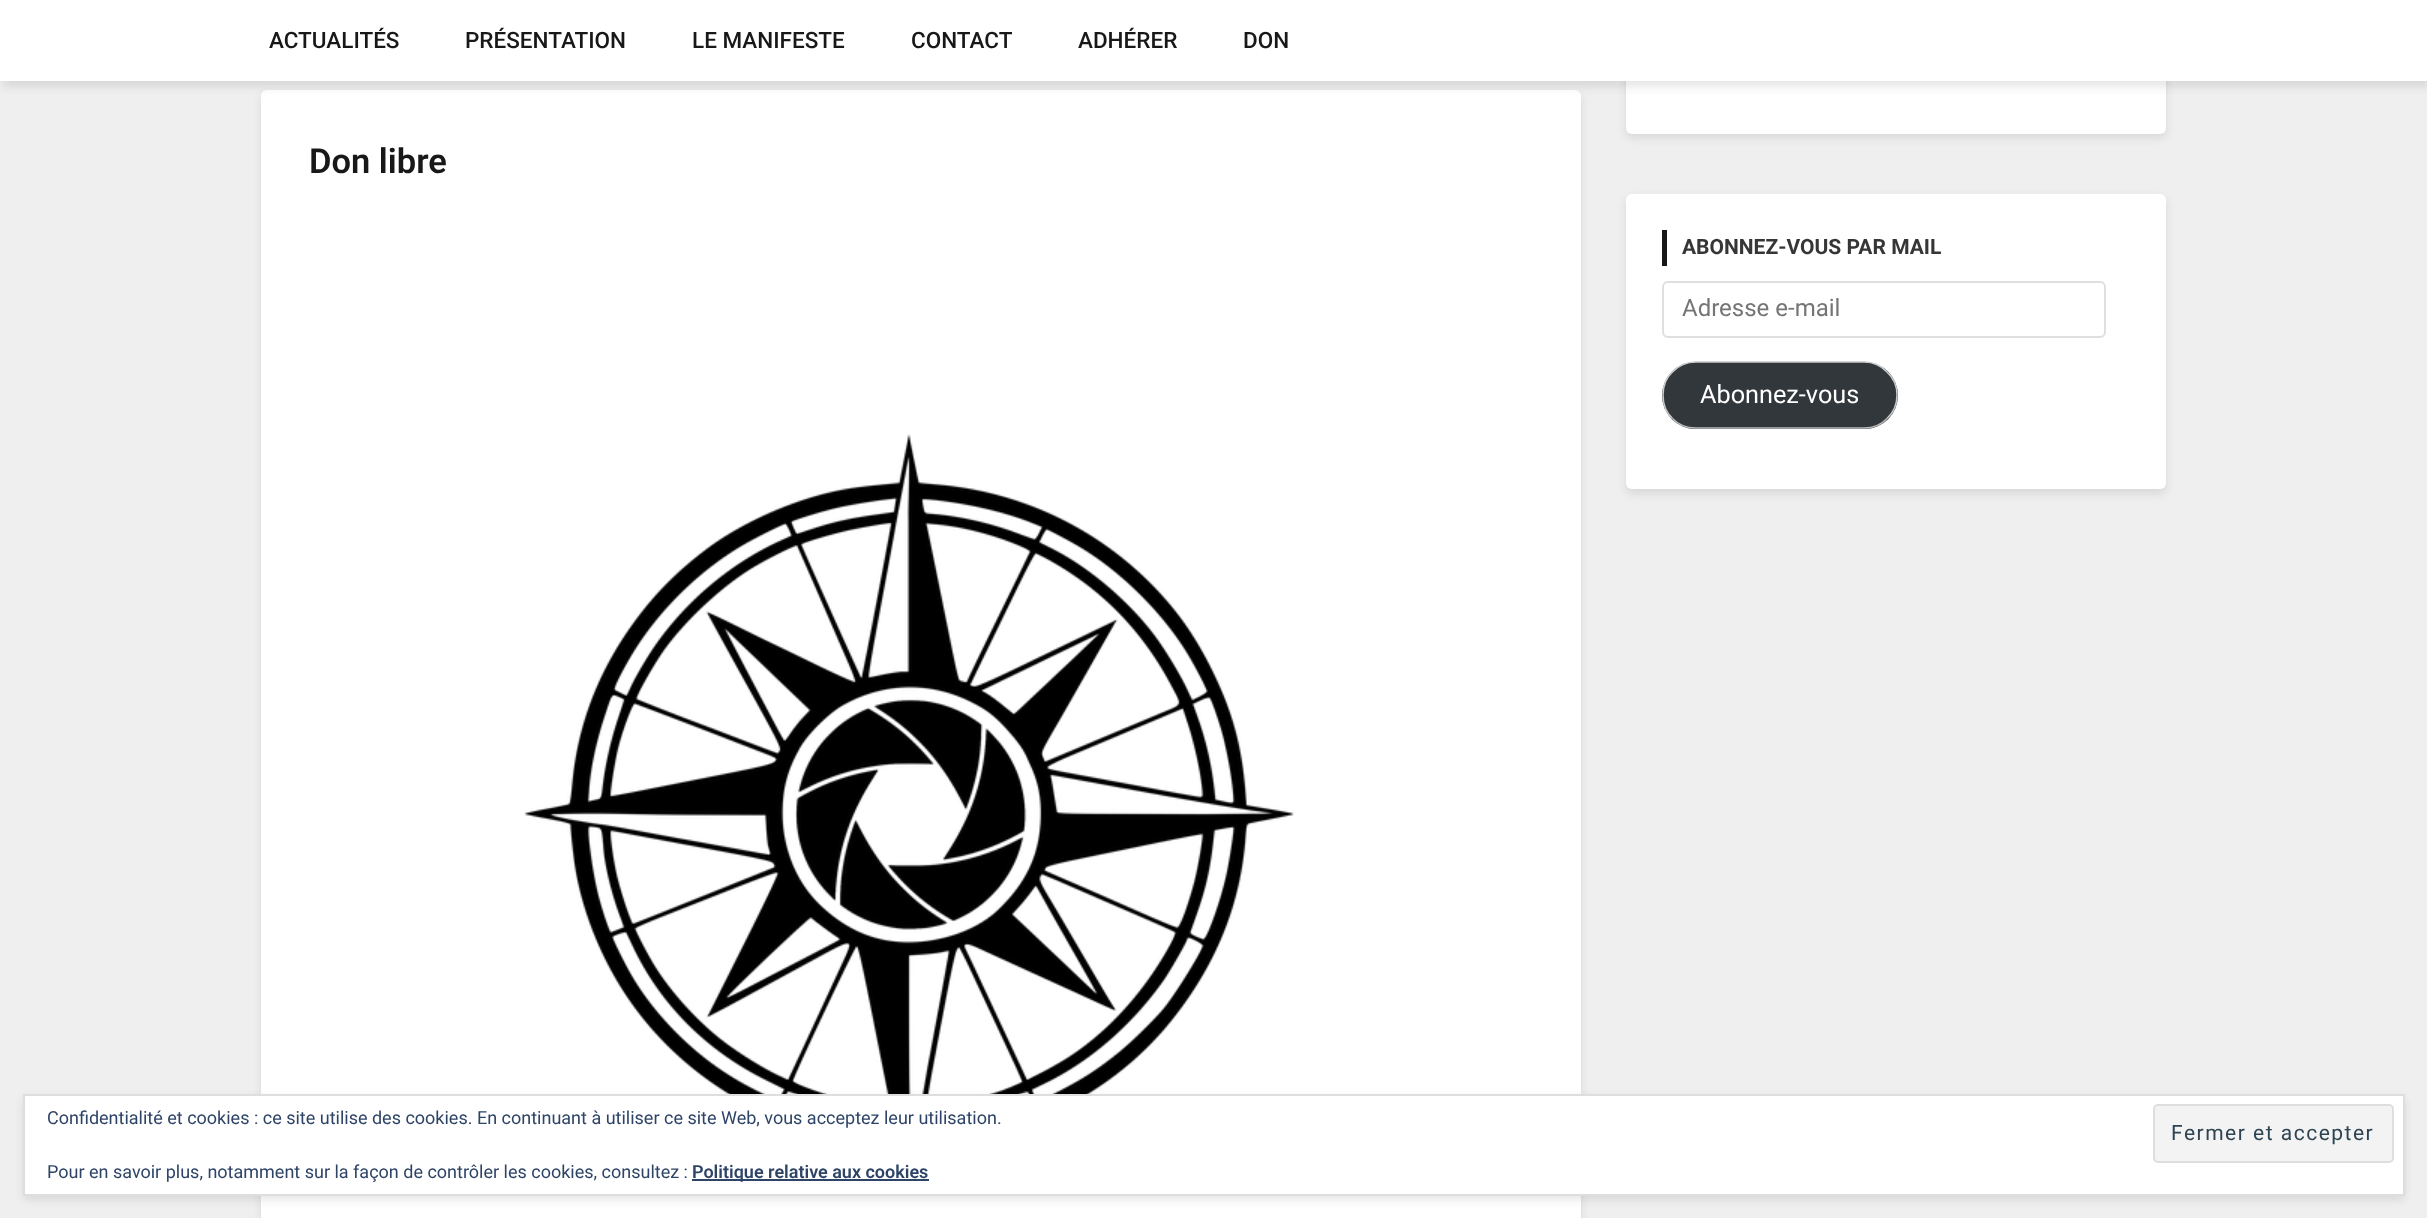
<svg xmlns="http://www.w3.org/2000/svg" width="2427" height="1218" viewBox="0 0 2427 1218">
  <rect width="100%" height="100%" fill="#efefef"/>
  <rect x="261" y="95" width="1320" height="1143" rx="6" fill="#1414141a" filter="blur(4.5px)"/>
  <rect x="261" y="90" width="1320" height="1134" rx="6" fill="#fff"/>
  <rect x="1626" y="6" width="540" height="132" rx="6" fill="#1414141a" filter="blur(4.5px)"/>
  <rect x="1626" y="2" width="540" height="132" rx="6" fill="#fff"/>
  <path d="M3 6h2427v81H3z" fill="#1414141a" filter="blur(4.5px)"/>
  <path d="M0 0h2427v81H0z" fill="#fff"/>
  <image x="524" y="434" width="770" height="660" href="img/1.png"/>
  <rect x="1626" y="198" width="540" height="296" rx="6" fill="#1414141a" filter="blur(4.5px)"/>
  <rect x="1626" y="194" width="540" height="295" rx="6" fill="#fff"/>
  <path d="M1662 230h5v36H1662z" fill="#181818"/>
  <rect x="1663" y="282" width="442" height="55" rx="5" fill="none" stroke="#dfdfdf" stroke-width="2"/>
  <rect x="1662" y="362" width="236" height="67" rx="33.5" fill="#32373c"/>
  <path d="M1887 418.5C1881 425 1872.5 428 1864 428H1696C1687 428 1678.5 425 1672.5 418.5" fill="none" stroke="#bbb" stroke-width="1.5"/>
  <path d="M1672.5 418.5C1666 412.5 1663 404 1663 395C1663 386.5 1666 378 1672.5 372C1678.5 365.5 1687 362 1696 362H1864C1872.5 362 1881 365.5 1887 372C1893.5 378 1897 386.5 1897 395C1897 404 1893.5 412.5 1887 418.5" fill="none" stroke="#ccc" stroke-width="1.5"/>
  <rect x="23" y="1098" width="2382" height="102" rx="6" fill="#1414141a" filter="blur(4.5px)"/>
  <path d="M24 1095h2380v100H24z" fill="#fff" stroke="#dedede" stroke-width="2"/>
  <rect x="2154" y="1105" width="239" height="57" rx="4" fill="#f3f3f3" stroke="#dedede" stroke-width="2"/>
  <path d="M692 1179h237v2H692z" fill="#2e4467"/>
  <g font-family="Roboto" font-size="22.5" font-weight="500" fill="#181818">
    <text x="269" y="48">ACTUALITÉS</text>
    <text x="465" y="48">PRÉSENTATION</text>
    <text x="692" y="48">LE MANIFESTE</text>
    <text x="911" y="48">CONTACT</text>
    <text x="1078" y="48">ADHÉRER</text>
    <text x="1243" y="48">DON</text>
  </g>
  <text x="309" y="173" font-family="Roboto" font-size="34.5" font-weight="600" fill="#181818">Don libre</text>
  <text x="1682" y="254" font-family="Roboto" font-size="21" font-weight="bold" fill="#363636">ABONNEZ-VOUS PAR MAIL</text>
  <text x="1682" y="316" font-family="Roboto" font-size="24" fill="#757575">Adresse e-mail</text>
  <text x="1700" y="403" font-family="Roboto" font-size="25.25" fill="#fff">Abonnez-vous</text>
  <text x="47" y="1124" font-family="Roboto" font-size="18" fill="#2e4467">Confidentialité et cookies : ce site utilise des cookies. En continuant à utiliser ce site Web, vous acceptez leur utilisation.</text>
  <text x="2171" y="1140" font-family="Roboto" font-size="21" letter-spacing="1.5" fill="#2e4453">Fermer et accepter</text>
  <text x="47" y="1178" font-family="Roboto" font-size="18" fill="#2e4467">Pour en savoir plus, notamment sur la façon de contrôler les cookies, consultez :</text>
  <text x="692" y="1178" font-family="Roboto" font-size="18" font-weight="600" fill="#2e4467">Politique relative aux cookies</text>
</svg>
